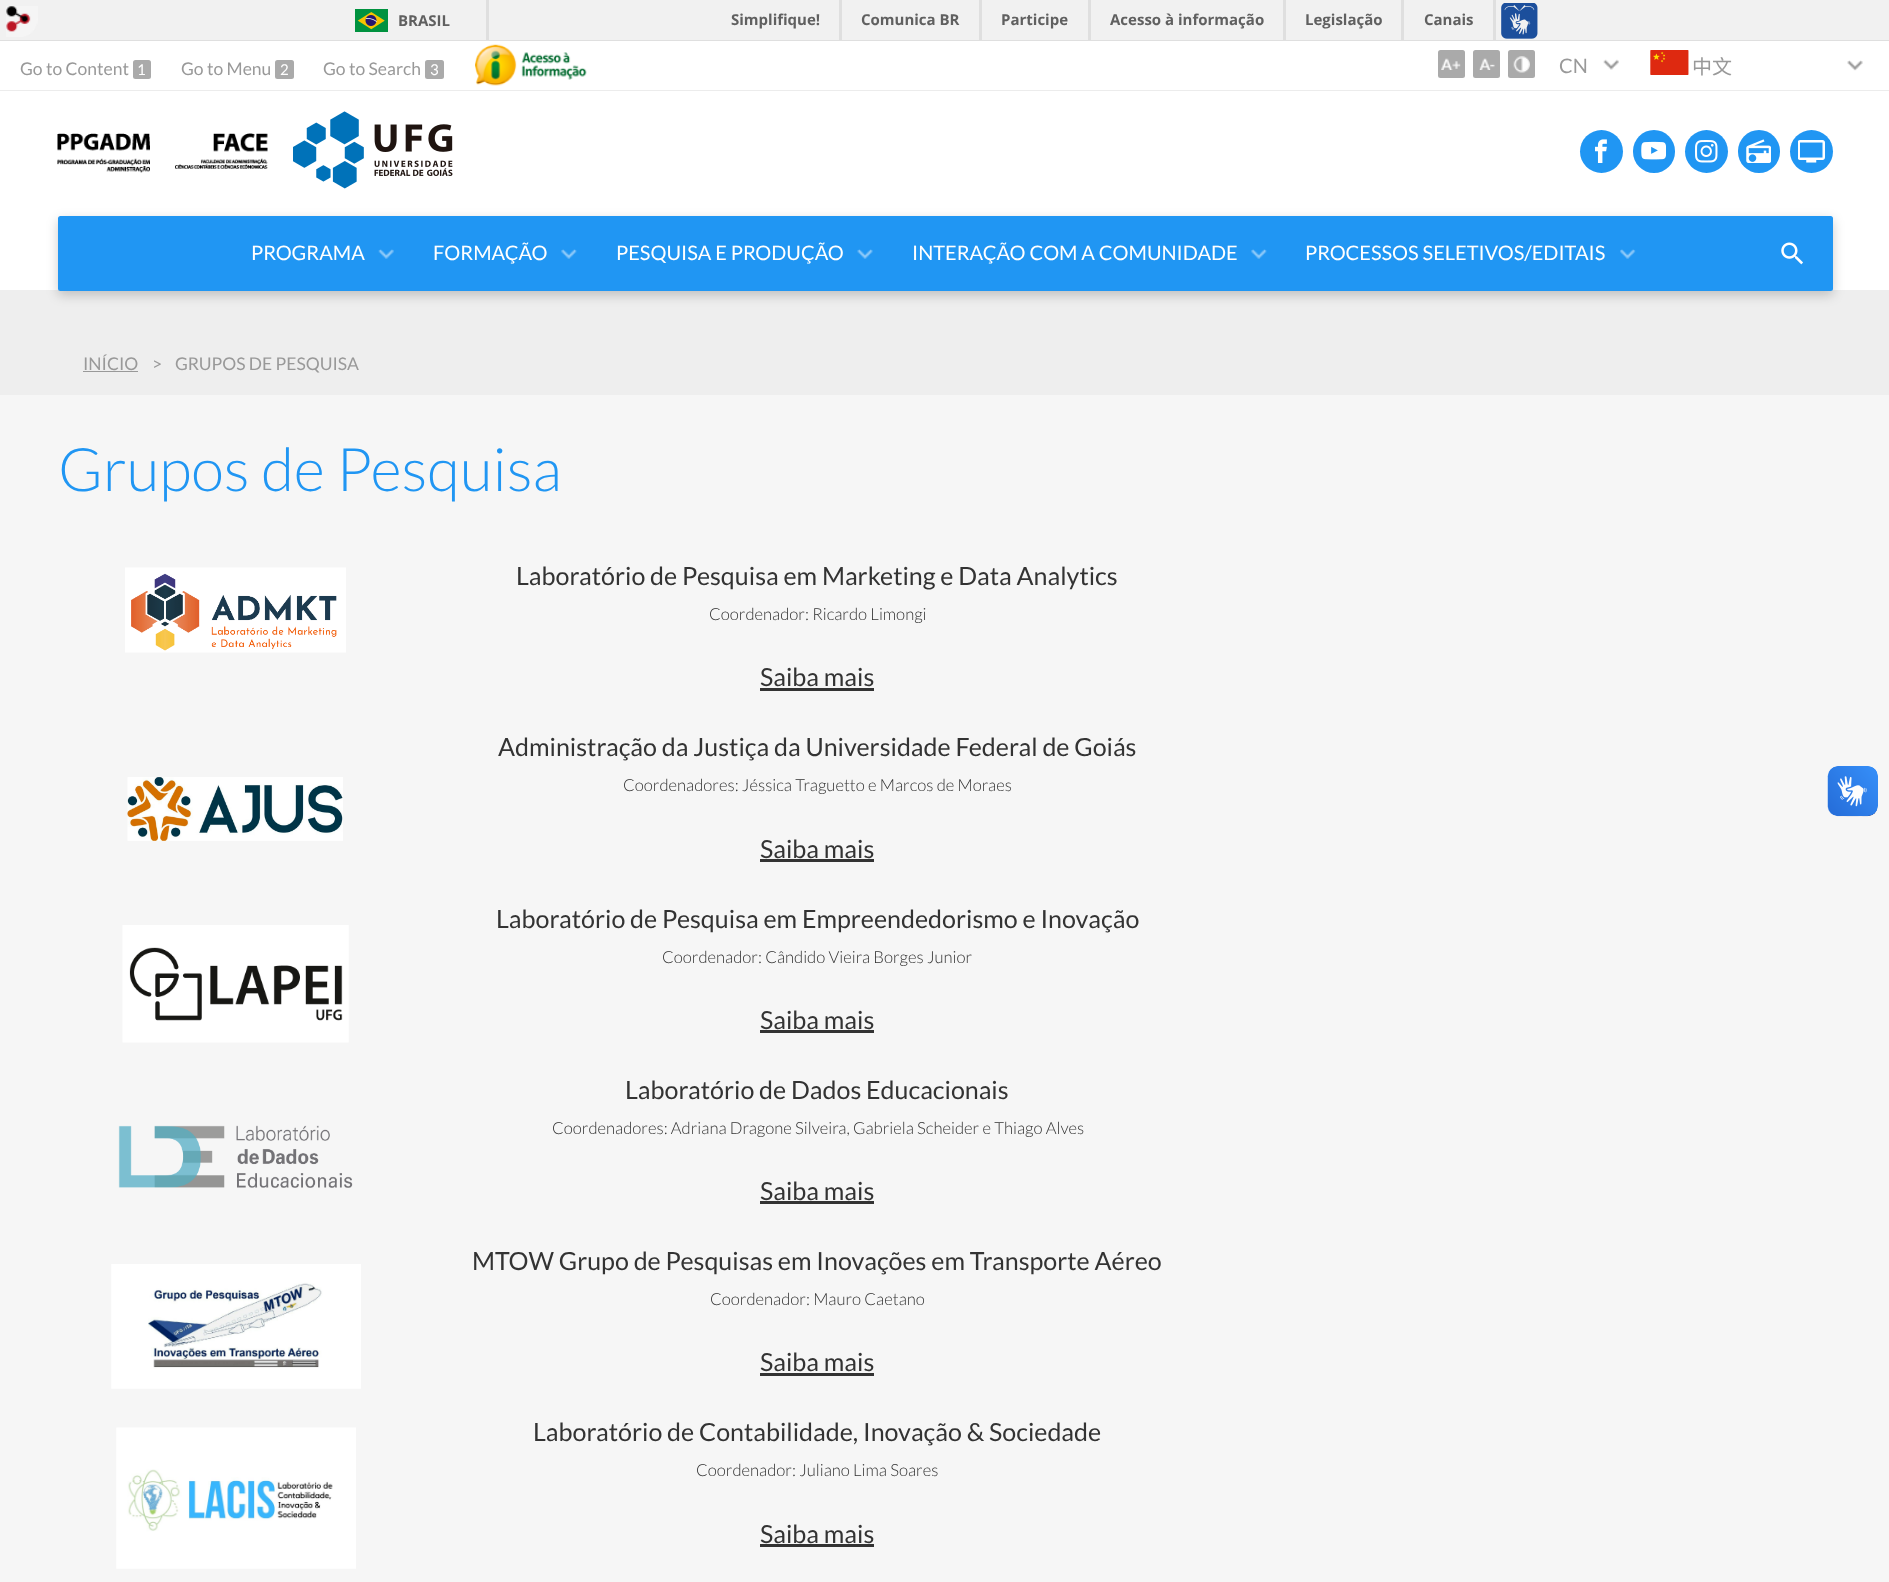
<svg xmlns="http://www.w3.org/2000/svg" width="1889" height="1582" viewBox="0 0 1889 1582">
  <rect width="100%" height="100%" fill="#f6f6f6"/>
  <path d="M0 0h1889v40H0z" fill="#f1f1f1"/>
  <image x="6" y="6" width="32" height="31" href="img/1.png"/>
  <path d="M0 40h1889v1H0z" fill="#dfdfdf"/>
  <path d="M486 0h3v40H486z" fill="#dfdfdf"/>
  <image x="355" y="9" width="33" height="23" href="img/2.png"/>
  <path d="M839 0h3v40H839z" fill="#dfdfdf"/>
  <path d="M979 0h3v40H979z" fill="#dfdfdf"/>
  <path d="M1088 0h3v40H1088z" fill="#dfdfdf"/>
  <path d="M1283 0h3v40H1283z" fill="#dfdfdf"/>
  <path d="M1401 0h3v40H1401z" fill="#dfdfdf"/>
  <path d="M1493 0h3v40H1493z" fill="#dfdfdf"/>
  <image x="1501" y="3" width="37" height="36" href="img/3.png"/>
  <path d="M0 41h1889v49H0z" fill="#fff"/>
  <path d="M0 90h1889v1H0z" fill="#ececec"/>
  <rect x="133" y="60" width="18" height="19" rx="2.5" fill="#aaa"/>
  <rect x="275" y="60" width="19" height="19" rx="2.5" fill="#aaa"/>
  <rect x="425" y="60" width="19" height="19" rx="2.5" fill="#aaa"/>
  <image x="475" y="44" width="112" height="42" href="img/4.png"/>
  <rect x="1438" y="50" width="27" height="28" rx="2.5" fill="#aaa"/>
  <image x="1441" y="58" width="20" height="12" href="img/5.png"/>
  <rect x="1473" y="50" width="27" height="28" rx="2.5" fill="#aaa"/>
  <image x="1479" y="58" width="16" height="12" href="img/6.png"/>
  <rect x="1508" y="50" width="27" height="28" rx="2.5" fill="#aaa"/>
  <image x="1513" y="56" width="17" height="17" href="img/7.png"/>
  <image x="1603" y="59" width="16" height="11" href="img/8.png"/>
  <image x="1847" y="60" width="16" height="11" href="img/9.png"/>
  <image x="1650" y="50" width="39" height="25" href="img/10.png"/>
  <path d="M0 91h1889v199H0z" fill="#fff"/>
  <image x="57" y="133" width="93" height="40" href="img/11.png"/>
  <image x="175" y="133" width="93" height="36" href="img/12.png"/>
  <image x="293" y="111" width="160" height="78" href="img/13.png"/>
  <circle cx="1601.5" cy="151.5" r="21.5" fill="#2096f3"/>
  <image x="1595" y="139" width="12" height="24" href="img/14.png"/>
  <rect x="1633" y="130" width="42" height="43" rx="21" fill="#2096f3"/>
  <image x="1641" y="141" width="25" height="19" href="img/15.png"/>
  <circle cx="1706.5" cy="151.5" r="21.5" fill="#2096f3"/>
  <image x="1695" y="140" width="23" height="23" href="img/16.png"/>
  <rect x="1738" y="130" width="42" height="43" rx="21" fill="#2096f3"/>
  <image x="1746" y="139" width="25" height="24" href="img/17.png"/>
  <circle cx="1811.5" cy="151.5" r="21.5" fill="#2096f3"/>
  <image x="1798" y="140" width="27" height="23" href="img/18.png"/>
  <path d="M0 290h1889v105H0z" fill="#eee"/>
  <rect x="58" y="220" width="1775" height="75" rx="2.5" fill="#00000033" filter="blur(6px)"/>
  <rect x="58" y="216" width="1775" height="75" rx="2.5" fill="#2096f3"/>
  <image x="378" y="249" width="16" height="10" href="img/19.png"/>
  <image x="561" y="249" width="16" height="10" href="img/20.png"/>
  <image x="857" y="249" width="16" height="10" href="img/21.png"/>
  <image x="1251" y="249" width="16" height="10" href="img/22.png"/>
  <image x="1620" y="249" width="16" height="10" href="img/23.png"/>
  <image x="1781" y="242" width="22" height="23" href="img/24.png"/>
  <path d="M83 371h55v1H83z" fill="#999"/>
  <image x="125" y="567" width="221" height="86" href="img/25.png"/>
  <path d="M760 688h114v3H760z" fill="#333"/>
  <image x="127" y="777" width="216" height="64" href="img/26.png"/>
  <path d="M760 859h114v3H760z" fill="#333"/>
  <image x="122" y="925" width="227" height="118" href="img/27.png"/>
  <path d="M760 1030h114v3H760z" fill="#333"/>
  <image x="118" y="1125" width="235" height="63" href="img/28.png"/>
  <path d="M760 1201h114v3H760z" fill="#333"/>
  <image x="111" y="1264" width="250" height="125" href="img/29.png"/>
  <path d="M760 1373h114v3H760z" fill="#333"/>
  <image x="116" y="1427" width="240" height="142" href="img/30.png"/>
  <path d="M760 1544h114v3H760z" fill="#333"/>
  <image x="1827" y="766" width="51" height="51" href="img/31.png"/>
  <image x="1828" y="766" width="50" height="50" href="img/32.png"/>
  <g font-family="Open Sans" font-size="15" font-weight="bold" fill="#606060">
    <text x="398" y="26">BRASIL</text>
    <text x="731" y="25">Simplifique!</text>
    <text x="861" y="25">Comunica BR</text>
    <text x="1001" y="25">Participe</text>
    <text x="1110" y="25">Acesso à informação</text>
    <text x="1305" y="25">Legislação</text>
    <text x="1424" y="25">Canais</text>
  </g>
  <text x="20" y="75" font-family="Lato" font-size="17.5" fill="#999">Go to Content</text>
  <text x="137" y="75" font-family="Lato" font-size="15" fill="#fff">1</text>
  <text x="181" y="75" font-family="Lato" font-size="17.5" fill="#999">Go to Menu</text>
  <text x="280" y="75" font-family="Lato" font-size="15" fill="#fff">2</text>
  <text x="323" y="75" font-family="Lato" font-size="17.5" fill="#999">Go to Search</text>
  <text x="430" y="75" font-family="Lato" font-size="15" fill="#fff">3</text>
  <text x="1559" y="73" font-family="Lato" font-size="20" fill="#999">CN</text>
  <text x="1692" y="74" font-family="Noto Sans CJK SC" font-size="20" fill="#999">中文</text>
  <g font-family="Lato" font-size="20" fill="#fff">
    <text x="251" y="260">PROGRAMA</text>
    <text x="433" y="260">FORMAÇÃO</text>
    <text x="616" y="260">PESQUISA E PRODUÇÃO</text>
    <text x="912" y="260">INTERAÇÃO COM A COMUNIDADE</text>
    <text x="1305" y="260">PROCESSOS SELETIVOS/EDITAIS</text>
  </g>
  <g font-family="Lato" font-size="17.5" fill="#999">
    <text x="83" y="370">INÍCIO</text>
    <text x="152" y="370">&gt;</text>
    <text x="175" y="370">GRUPOS DE PESQUISA</text>
  </g>
  <text x="58" y="491" font-family="Lato" font-size="60" font-weight="300" fill="#2096f3">Grupos de Pesquisa</text>
  <text x="516" y="585" font-family="Lato" font-size="25" fill="#333">Laboratório de Pesquisa em Marketing e Data Analytics</text>
  <text x="709" y="620" font-family="Lato" font-size="16.7" font-weight="300" fill="#333">Coordenador: Ricardo Limongi</text>
  <g font-family="Lato" font-size="25" fill="#333">
    <text x="760" y="686">Saiba mais</text>
    <text x="498" y="756">Administração da Justiça da Universidade Federal de Goiás</text>
  </g>
  <text x="623" y="791" font-family="Lato" font-size="16.7" font-weight="300" fill="#333">Coordenadores: Jéssica Traguetto e Marcos de Moraes</text>
  <g font-family="Lato" font-size="25" fill="#333">
    <text x="760" y="858">Saiba mais</text>
    <text x="496" y="928">Laboratório de Pesquisa em Empreendedorismo e Inovação</text>
  </g>
  <text x="662" y="963" font-family="Lato" font-size="16.7" font-weight="300" fill="#333">Coordenador: Cândido Vieira Borges Junior</text>
  <g font-family="Lato" font-size="25" fill="#333">
    <text x="760" y="1029">Saiba mais</text>
    <text x="625" y="1099">Laboratório de Dados Educacionais</text>
  </g>
  <text x="552" y="1134" font-family="Lato" font-size="16.7" font-weight="300" fill="#333">Coordenadores: Adriana Dragone Silveira, Gabriela Scheider e Thiago Alves</text>
  <g font-family="Lato" font-size="25" fill="#333">
    <text x="760" y="1200">Saiba mais</text>
    <text x="472" y="1270">MTOW Grupo de Pesquisas em Inovações em Transporte Aéreo</text>
  </g>
  <text x="710" y="1305" font-family="Lato" font-size="16.7" font-weight="300" fill="#333">Coordenador: Mauro Caetano</text>
  <g font-family="Lato" font-size="25" fill="#333">
    <text x="760" y="1371">Saiba mais</text>
    <text x="533" y="1441">Laboratório de Contabilidade, Inovação &amp; Sociedade</text>
  </g>
  <text x="696" y="1476" font-family="Lato" font-size="16.7" font-weight="300" fill="#333">Coordenador: Juliano Lima Soares</text>
  <text x="760" y="1543" font-family="Lato" font-size="25" fill="#333">Saiba mais</text>
</svg>
